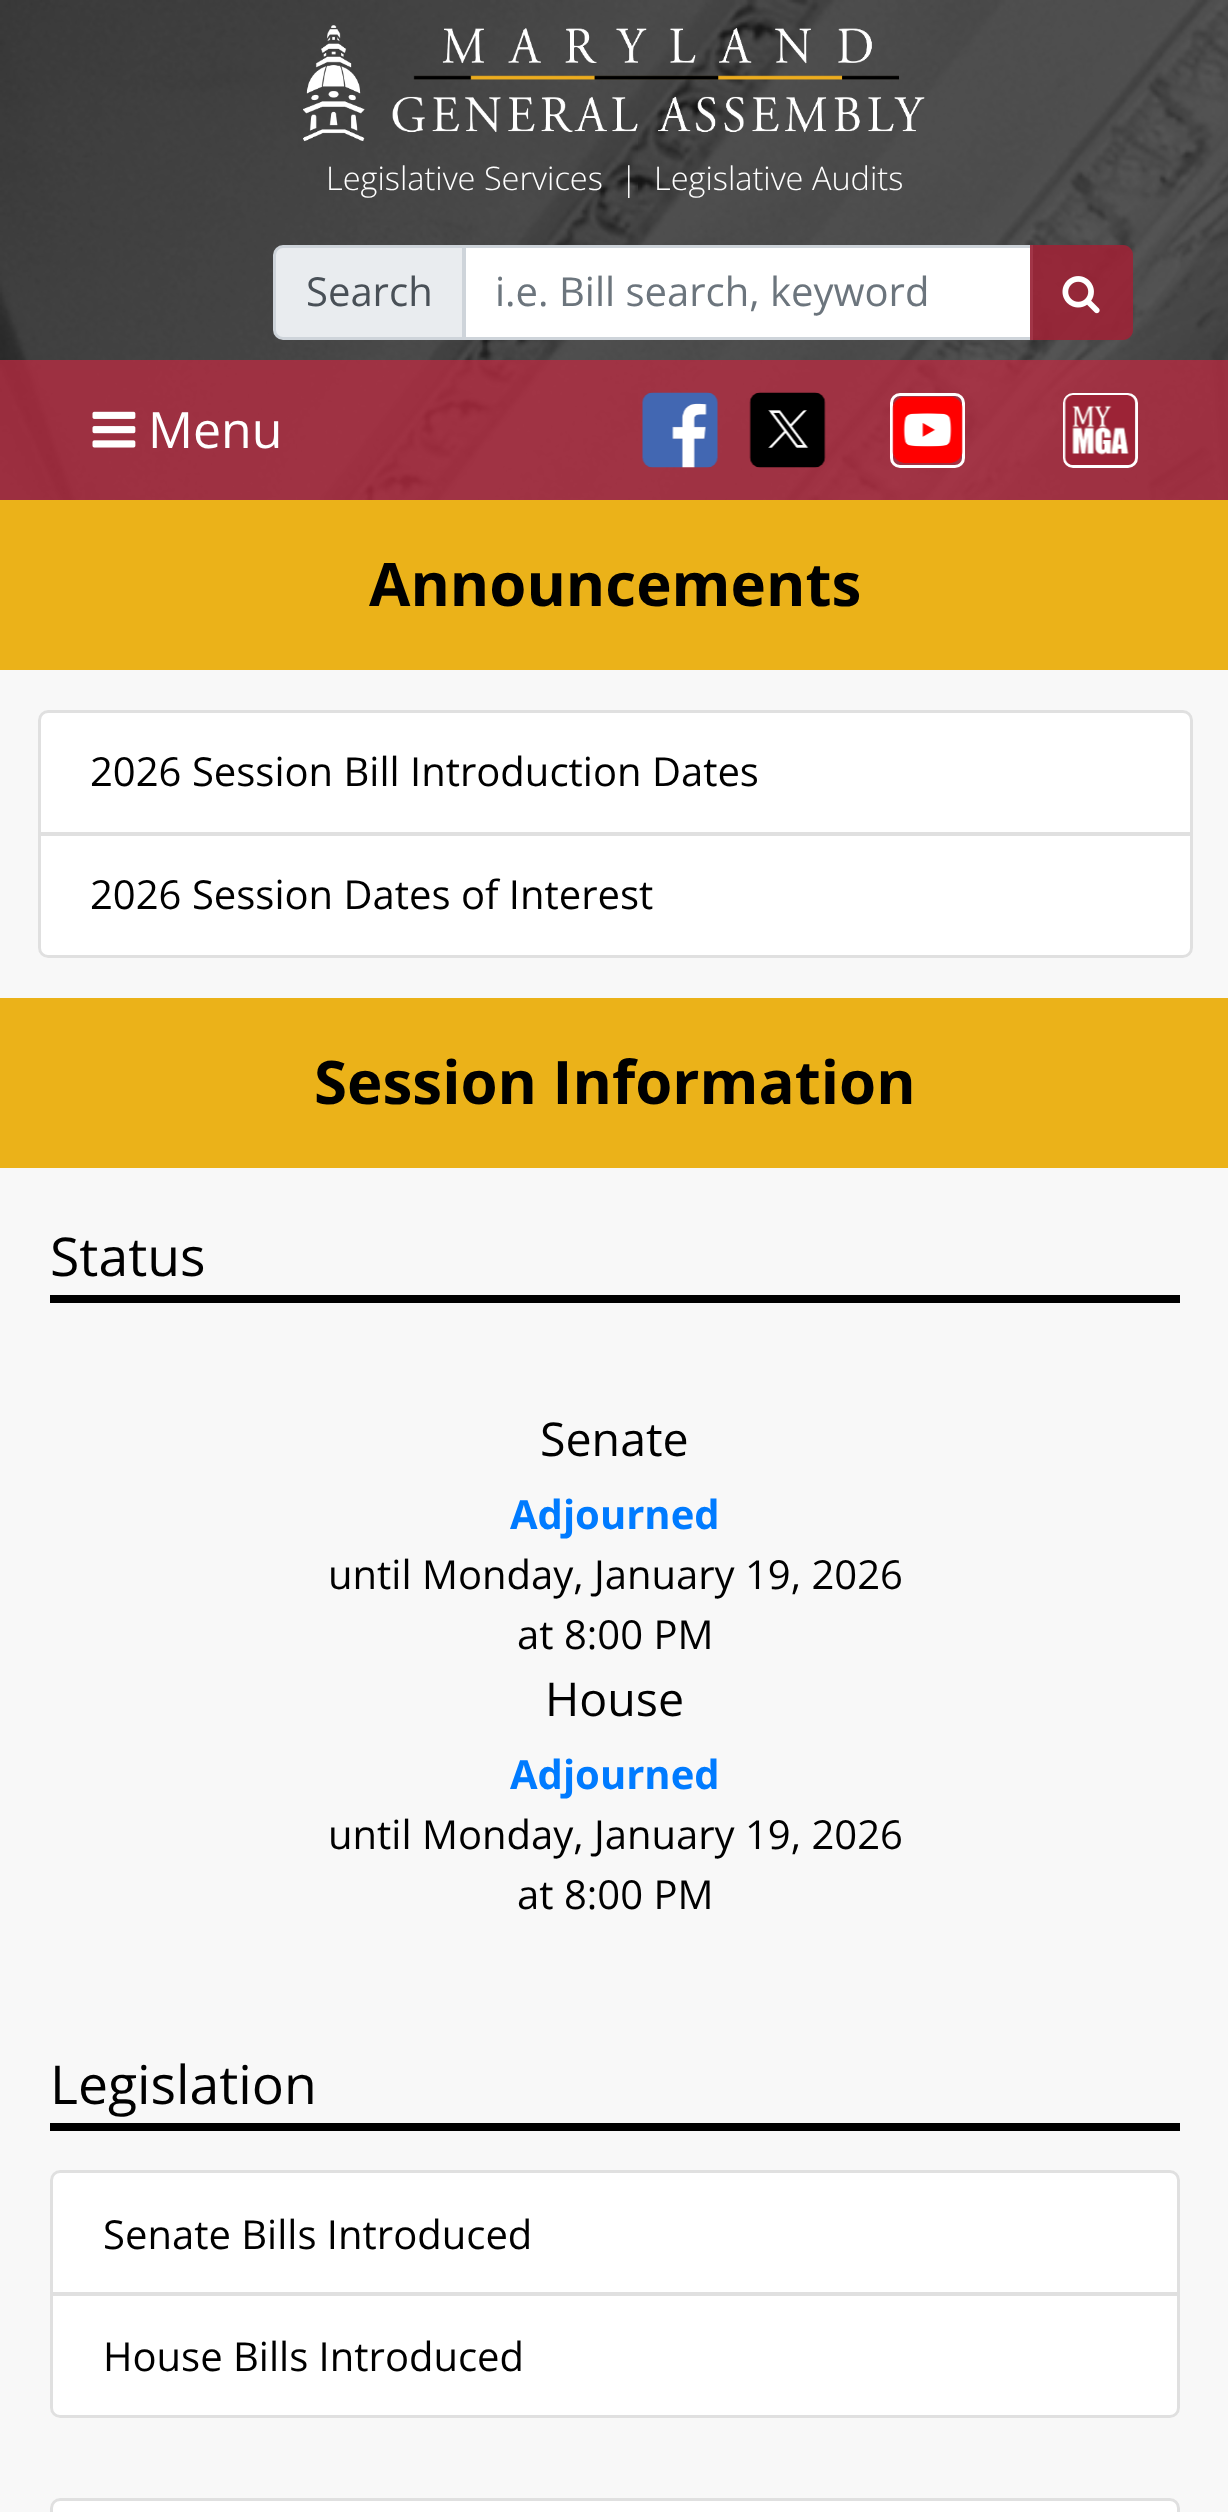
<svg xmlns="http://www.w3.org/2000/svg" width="1228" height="2512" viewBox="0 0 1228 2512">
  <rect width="100%" height="100%" fill="#f8f8f8"/>
  <image x="0" y="0" width="1228" height="500" href="img/1.png"/>
  <path d="M0 0h1228v360H0z" fill="#00000099"/>
  <image x="303" y="25" width="622" height="117" href="img/2.png"/>
  <path d="M283 246.5H463.5V338.5H283C278.5 338.5 274.5 334.5 274.5 330V255C274.5 250.5 278.5 246.5 283 246.5Z" fill="#e9ecef" stroke="#ced4da" stroke-width="3"/>
  <path d="M464.5 246.5h567v92H464.5z" fill="#fff" stroke="#ced4da" stroke-width="3"/>
  <path d="M1030 245H1123C1128.5 245 1133 249.5 1133 255V330C1133 335.5 1128.5 340 1123 340H1030Z" fill="#9c2436e6"/>
  <image x="1062" y="276" width="38" height="38" href="img/3.png"/>
  <path d="M0 360h1228v140H0z" fill="#9c2436e6"/>
  <image x="92" y="411" width="44" height="37" href="img/4.png"/>
  <image x="642" y="392" width="76" height="76" href="img/5.png"/>
  <image x="749" y="392" width="77" height="76" href="img/6.png"/>
  <rect x="891.5" y="394.5" width="72" height="72" rx="8.5" fill="none" stroke="#fff" stroke-width="3"/>
  <image x="892" y="396" width="71" height="68" href="img/7.png"/>
  <rect x="1064.5" y="394.5" width="72" height="72" rx="8.5" fill="none" stroke="#fff" stroke-width="3"/>
  <image x="1064" y="395" width="72" height="70" href="img/8.png"/>
  <path d="M0 500h1228v170H0z" fill="#ebb219"/>
  <path d="M48 710H1183C1188.5 710 1193 714.5 1193 720V835H38V720C38 714.5 42.5 710 48 710Z" fill="#fff"/>
  <path d="M48 711.5H1183C1187.5 711.5 1191.5 715.5 1191.5 720V833.5H39.5V720C39.5 715.5 43.5 711.5 48 711.5Z" fill="none" stroke="#0000001f" stroke-width="3"/>
  <path d="M38 833H1193V948C1193 953.5 1188.5 958 1183 958H48C42.5 958 38 953.5 38 948Z" fill="#fff"/>
  <path d="M39.5 834.5H1191.5V948C1191.5 952.5 1187.5 956.5 1183 956.5H48C43.5 956.5 39.5 952.5 39.5 948Z" fill="none" stroke="#0000001f" stroke-width="3"/>
  <path d="M0 998h1228v170H0z" fill="#ebb219"/>
  <path d="M50 1295h1130v8H50z" fill="#000"/>
  <path d="M50 2123h1130v8H50z" fill="#000"/>
  <path d="M60 2170H1170C1175.5 2170 1180 2174.5 1180 2180V2295H50V2180C50 2174.5 54.5 2170 60 2170Z" fill="#fff"/>
  <path d="M60 2171.5H1170C1174.5 2171.5 1178.5 2175.5 1178.5 2180V2293.5H51.5V2180C51.5 2175.5 55.5 2171.5 60 2171.5Z" fill="none" stroke="#0000001f" stroke-width="3"/>
  <path d="M50 2293H1180V2408C1180 2413.5 1175.5 2418 1170 2418H60C54.5 2418 50 2413.5 50 2408Z" fill="#fff"/>
  <path d="M51.5 2294.5H1178.5V2408C1178.5 2412.5 1174.5 2416.5 1170 2416.5H60C55.5 2416.5 51.5 2412.5 51.5 2408Z" fill="none" stroke="#0000001f" stroke-width="3"/>
  <path d="M60 2498H1170C1175.5 2498 1180 2502.5 1180 2508V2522H50V2508C50 2502.5 54.5 2498 60 2498Z" fill="#fff"/>
  <path d="M60 2499.5H1170C1174.5 2499.5 1178.5 2503.5 1178.5 2508V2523.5H51.5V2508C51.5 2503.5 55.5 2499.5 60 2499.5Z" fill="none" stroke="#0000001f" stroke-width="3"/>
  <g font-family="Open Sans" font-size="32.5" font-weight="300" fill="#fff">
    <text x="326" y="190">Legislative Services</text>
    <text x="620" y="190">|</text>
    <text x="654" y="190">Legislative Audits</text>
  </g>
  <text x="306" y="306" font-family="Open Sans" font-size="40" fill="#495057">Search</text>
  <text x="495" y="306" font-family="Open Sans" font-size="40" fill="#6c757d">i.e. Bill search, keyword</text>
  <text x="148" y="448" font-family="Open Sans" font-size="50" fill="#fff">Menu</text>
  <text x="369" y="606" font-family="Open Sans" font-size="60" font-weight="bold" fill="#000">Announcements</text>
  <g font-family="Open Sans" font-size="40" fill="#000">
    <text x="90" y="786">2026 Session Bill Introduction Dates</text>
    <text x="90" y="909">2026 Session Dates of Interest</text>
  </g>
  <text x="314" y="1104" font-family="Open Sans" font-size="60" font-weight="bold" fill="#000">Session Information</text>
  <text x="50" y="1276" font-family="Open Sans" font-size="53.5" fill="#000">Status</text>
  <text x="540" y="1456" font-family="Open Sans" font-size="46.5" fill="#000">Senate</text>
  <text x="510" y="1529" font-family="Open Sans" font-size="40" font-weight="bold" fill="#007bff">Adjourned</text>
  <g font-family="Open Sans" font-size="40" fill="#000">
    <text x="328" y="1589">until Monday, January 19, 2026</text>
    <text x="517" y="1649">at 8:00 PM</text>
  </g>
  <text x="545" y="1716" font-family="Open Sans" font-size="46.5" fill="#000">House</text>
  <text x="510" y="1789" font-family="Open Sans" font-size="40" font-weight="bold" fill="#007bff">Adjourned</text>
  <g font-family="Open Sans" font-size="40" fill="#000">
    <text x="328" y="1849">until Monday, January 19, 2026</text>
    <text x="517" y="1909">at 8:00 PM</text>
  </g>
  <text x="50" y="2104" font-family="Open Sans" font-size="53.5" fill="#000">Legislation</text>
  <g font-family="Open Sans" font-size="40" fill="#000">
    <text x="103" y="2249">Senate Bills Introduced</text>
    <text x="103" y="2371">House Bills Introduced</text>
  </g>
</svg>
